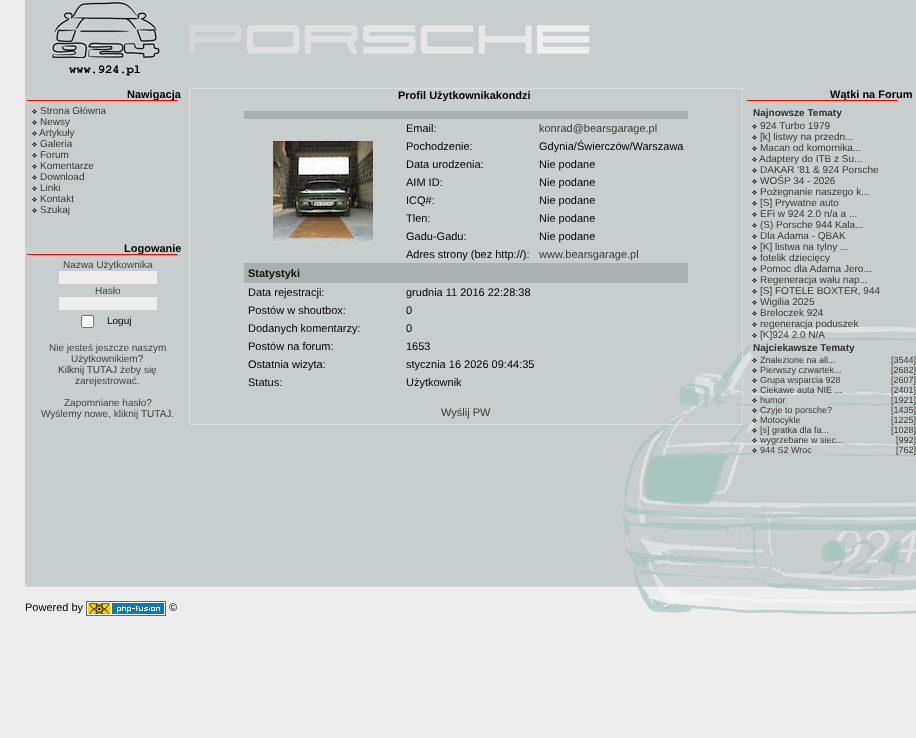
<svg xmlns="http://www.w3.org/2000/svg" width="916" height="738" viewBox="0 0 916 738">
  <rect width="100%" height="100%" fill="#ededed"/>
  <image x="0" y="0" width="916" height="615" href="img/1.png"/>
  <path d="M0 0h25v587H0z" fill="#ededed"/>
  <image x="51" y="1" width="539" height="75" href="img/2.png"/>
  <image x="32" y="109" width="5" height="5" href="img/3.png"/>
  <image x="32" y="120" width="5" height="5" href="img/3.png"/>
  <image x="32" y="131" width="5" height="5" href="img/3.png"/>
  <image x="32" y="142" width="5" height="5" href="img/3.png"/>
  <image x="32" y="153" width="5" height="5" href="img/3.png"/>
  <image x="32" y="164" width="5" height="5" href="img/3.png"/>
  <image x="32" y="175" width="5" height="5" href="img/3.png"/>
  <image x="32" y="186" width="5" height="5" href="img/3.png"/>
  <image x="32" y="197" width="5" height="5" href="img/3.png"/>
  <image x="32" y="208" width="5" height="5" href="img/3.png"/>
  <path d="M59 297h98v13H59z" fill="#ededed"/>
  <rect x="81.5" y="315.5" width="12" height="12" rx="1.5" fill="#fff" stroke="#767676"/>
  <path d="M189 88h554v1H189z" fill="#dadfdf"/>
  <path d="M742 88h1v337H742z" fill="#dadfdf"/>
  <path d="M189 88h1v13H189z" fill="#dadfdf"/>
  <path d="M189 424h554v1H189z" fill="#dadfdf"/>
  <path d="M189 101h1v324H189z" fill="#dadfdf"/>
  <path d="M244 111h444v8H244z" fill="#aaafaf"/>
  <image x="273" y="141" width="100" height="100" href="img/4.png"/>
  <path d="M244 263h444v20H244z" fill="#aaafaf"/>
  <image x="752" y="124" width="5" height="5" href="img/3.png"/>
  <image x="752" y="135" width="5" height="5" href="img/3.png"/>
  <image x="752" y="146" width="5" height="5" href="img/3.png"/>
  <image x="752" y="157" width="5" height="5" href="img/3.png"/>
  <image x="752" y="168" width="5" height="5" href="img/3.png"/>
  <image x="752" y="179" width="5" height="5" href="img/3.png"/>
  <image x="752" y="190" width="5" height="5" href="img/3.png"/>
  <image x="752" y="201" width="5" height="5" href="img/3.png"/>
  <image x="752" y="212" width="5" height="5" href="img/3.png"/>
  <image x="752" y="223" width="5" height="5" href="img/3.png"/>
  <image x="752" y="234" width="5" height="5" href="img/3.png"/>
  <image x="752" y="245" width="5" height="5" href="img/3.png"/>
  <image x="752" y="256" width="5" height="5" href="img/3.png"/>
  <image x="752" y="267" width="5" height="5" href="img/3.png"/>
  <image x="752" y="278" width="5" height="5" href="img/3.png"/>
  <image x="752" y="289" width="5" height="5" href="img/3.png"/>
  <image x="752" y="300" width="5" height="5" href="img/3.png"/>
  <image x="752" y="311" width="5" height="5" href="img/3.png"/>
  <image x="752" y="322" width="5" height="5" href="img/3.png"/>
  <image x="752" y="333" width="5" height="5" href="img/3.png"/>
  <path d="M751 340h165v15H751z" fill="#c8cdcd"/>
  <image x="752" y="358" width="5" height="5" href="img/3.png"/>
  <image x="752" y="368" width="5" height="5" href="img/3.png"/>
  <image x="752" y="378" width="5" height="5" href="img/3.png"/>
  <image x="752" y="388" width="5" height="5" href="img/5.png"/>
  <image x="752" y="398" width="5" height="5" href="img/3.png"/>
  <image x="752" y="408" width="5" height="5" href="img/6.png"/>
  <image x="752" y="418" width="5" height="5" href="img/7.png"/>
  <image x="752" y="428" width="5" height="5" href="img/3.png"/>
  <image x="752" y="438" width="5" height="5" href="img/8.png"/>
  <image x="752" y="448" width="5" height="5" href="img/9.png"/>
  <image x="86" y="601" width="80" height="15" href="img/10.png"/>
  <text x="127" y="98" font-family="Liberation Sans" font-size="11" font-weight="bold" fill="#000">Nawigacja</text>
  <path d="M27 100h150v1H27z" fill="#f00"/>
  <g font-family="Liberation Sans" font-size="10" fill="#3a3935">
    <text x="40" y="114">Strona Główna</text>
    <text x="40" y="125">Newsy</text>
    <text x="39" y="136">Artykuły</text>
    <text x="40" y="147">Galeria</text>
    <text x="40" y="158">Forum</text>
    <text x="40" y="169">Komentarze</text>
    <text x="40" y="180">Download</text>
    <text x="40" y="191">Linki</text>
    <text x="40" y="202">Kontakt</text>
    <text x="40" y="213">Szukaj</text>
  </g>
  <text x="124" y="252" font-family="Liberation Sans" font-size="11" font-weight="bold" fill="#000">Logowanie</text>
  <path d="M27 254h150v1H27z" fill="#f00"/>
  <text x="63" y="268" font-family="Liberation Sans" font-size="10" fill="#444">Nazwa Użytkownika</text>
  <path d="M58.5 270.5h99v14H58.5z" fill="#ededed" stroke="#c8cdcd"/>
  <text x="95" y="294" font-family="Liberation Sans" font-size="10" fill="#444">Hasło</text>
  <text x="107" y="324" font-family="Liberation Sans" font-size="10" fill="#000">Loguj</text>
  <g font-family="Liberation Sans" font-size="10" fill="#444">
    <text x="49" y="351">Nie jesteś jeszcze naszym</text>
    <text x="71" y="362">Użytkownikiem?</text>
  </g>
  <text x="58" y="373" font-family="Liberation Sans" font-size="10" fill="#3a3935">Kilknij TUTAJ</text>
  <g font-family="Liberation Sans" font-size="10" fill="#444">
    <text x="120" y="373">żeby się</text>
    <text x="75" y="384">zarejestrować.</text>
    <text x="64" y="406">Zapomniane hasło?</text>
    <text x="41" y="417">Wyślemy nowe, kliknij</text>
  </g>
  <text x="141" y="417" font-family="Liberation Sans" font-size="10" fill="#3a3935">TUTAJ</text>
  <text x="171" y="417" font-family="Liberation Sans" font-size="10" fill="#444">.</text>
  <text x="398" y="99" font-family="Liberation Sans" font-size="11" font-weight="bold" fill="#000">Profil Użytkownikakondzi</text>
  <text x="406" y="132" font-family="Liberation Sans" font-size="11" fill="#000">Email:</text>
  <text x="539" y="132" font-family="Liberation Sans" font-size="11" fill="#3a3935">konrad@bearsgarage.pl</text>
  <g font-family="Liberation Sans" font-size="11" fill="#000">
    <text x="406" y="150">Pochodzenie:</text>
    <text x="539" y="150">Gdynia/Świerczów/Warszawa</text>
    <text x="406" y="168">Data urodzenia:</text>
    <text x="539" y="168">Nie podane</text>
    <text x="406" y="186">AIM ID:</text>
    <text x="539" y="186">Nie podane</text>
    <text x="406" y="204">ICQ#:</text>
    <text x="539" y="204">Nie podane</text>
    <text x="406" y="222">Tlen:</text>
    <text x="539" y="222">Nie podane</text>
    <text x="406" y="240">Gadu-Gadu:</text>
    <text x="539" y="240">Nie podane</text>
    <text x="406" y="258">Adres strony (bez http://):</text>
  </g>
  <text x="539" y="258" font-family="Liberation Sans" font-size="11" fill="#3a3935">www.bearsgarage.pl</text>
  <text x="248" y="277" font-family="Liberation Sans" font-size="11" font-weight="bold" fill="#091609">Statystyki</text>
  <g font-family="Liberation Sans" font-size="11" fill="#000">
    <text x="248" y="296">Data rejestracji:</text>
    <text x="406" y="296">grudnia 11 2016 22:28:38</text>
    <text x="248" y="314">Postów w shoutbox:</text>
    <text x="406" y="314">0</text>
    <text x="248" y="332">Dodanych komentarzy:</text>
    <text x="406" y="332">0</text>
    <text x="248" y="350">Postów na forum:</text>
    <text x="406" y="350">1653</text>
    <text x="248" y="368">Ostatnia wizyta:</text>
    <text x="406" y="368">stycznia 16 2026 09:44:35</text>
    <text x="248" y="386">Status:</text>
    <text x="406" y="386">Użytkownik</text>
  </g>
  <text x="441" y="416" font-family="Liberation Sans" font-size="11" fill="#3a3935">Wyślij PW</text>
  <text x="830" y="98" font-family="Liberation Sans" font-size="11" font-weight="bold" fill="#000">Wątki na Forum</text>
  <path d="M747 100h150v1H747z" fill="#f00"/>
  <text x="753" y="116" font-family="Liberation Sans" font-size="10" font-weight="bold" fill="#32312f">Najnowsze Tematy</text>
  <g font-family="Liberation Sans" font-size="10" fill="#3a3935">
    <text x="760" y="129">924 Turbo 1979</text>
    <text x="760" y="140">[k] listwy na przedn...</text>
    <text x="760" y="151">Macan od komornika...</text>
    <text x="759" y="162">Adaptery do ITB z Su...</text>
    <text x="760" y="173">DAKAR '81 &amp; 924 Porsche</text>
    <text x="760" y="184">WOŚP 34 - 2026</text>
    <text x="760" y="195">Pożegnanie naszego k...</text>
    <text x="760" y="206">[S] Prywatne auto</text>
    <text x="760" y="217">EFi w 924 2.0 n/a a ...</text>
    <text x="760" y="228">(S) Porsche 944 Kala...</text>
    <text x="760" y="239">Dla Adama - QBAK</text>
    <text x="760" y="250">[K] listwa na tylny ...</text>
    <text x="760" y="261">fotelik dziecięcy</text>
    <text x="760" y="272">Pomoc dla Adama Jero...</text>
    <text x="760" y="283">Regeneracja wału nap...</text>
    <text x="760" y="294">[S] FOTELE BOXTER, 944</text>
    <text x="760" y="305">Wigilia 2025</text>
    <text x="760" y="316">Breloczek 924</text>
    <text x="760" y="327">regeneracja poduszek</text>
    <text x="760" y="338">[K]924 2.0 N/A</text>
  </g>
  <text x="753" y="351" font-family="Liberation Sans" font-size="10" font-weight="bold" fill="#32312f">Najciekawsze Tematy</text>
  <g font-family="Liberation Sans" font-size="9" fill="#3a3935">
    <text x="760" y="363">Znalezione na all...</text>
    <text x="891" y="363">[3544]</text>
    <text x="760" y="373">Pierwszy czwartek...</text>
    <text x="891" y="373">[2682]</text>
    <text x="760" y="383">Grupa wsparcia 928</text>
    <text x="891" y="383">[2607]</text>
    <text x="760" y="393">Ciekawe auta NIE ...</text>
    <text x="891" y="393">[2401]</text>
    <text x="760" y="403">humor</text>
    <text x="891" y="403">[1921]</text>
    <text x="760" y="413">Czyje to porsche?</text>
    <text x="891" y="413">[1435]</text>
    <text x="760" y="423">Motocykle</text>
    <text x="891" y="423">[1225]</text>
    <text x="760" y="433">[s] gratka dla fa...</text>
    <text x="891" y="433">[1028]</text>
    <text x="760" y="443">wygrzebane w siec...</text>
    <text x="896" y="443">[992]</text>
    <text x="760" y="453">944 S2 Wroc</text>
    <text x="896" y="453">[762]</text>
  </g>
  <g font-family="Liberation Sans" font-size="11" fill="#000">
    <text x="25" y="611">Powered by</text>
    <text x="169" y="611">©</text>
  </g>
</svg>
